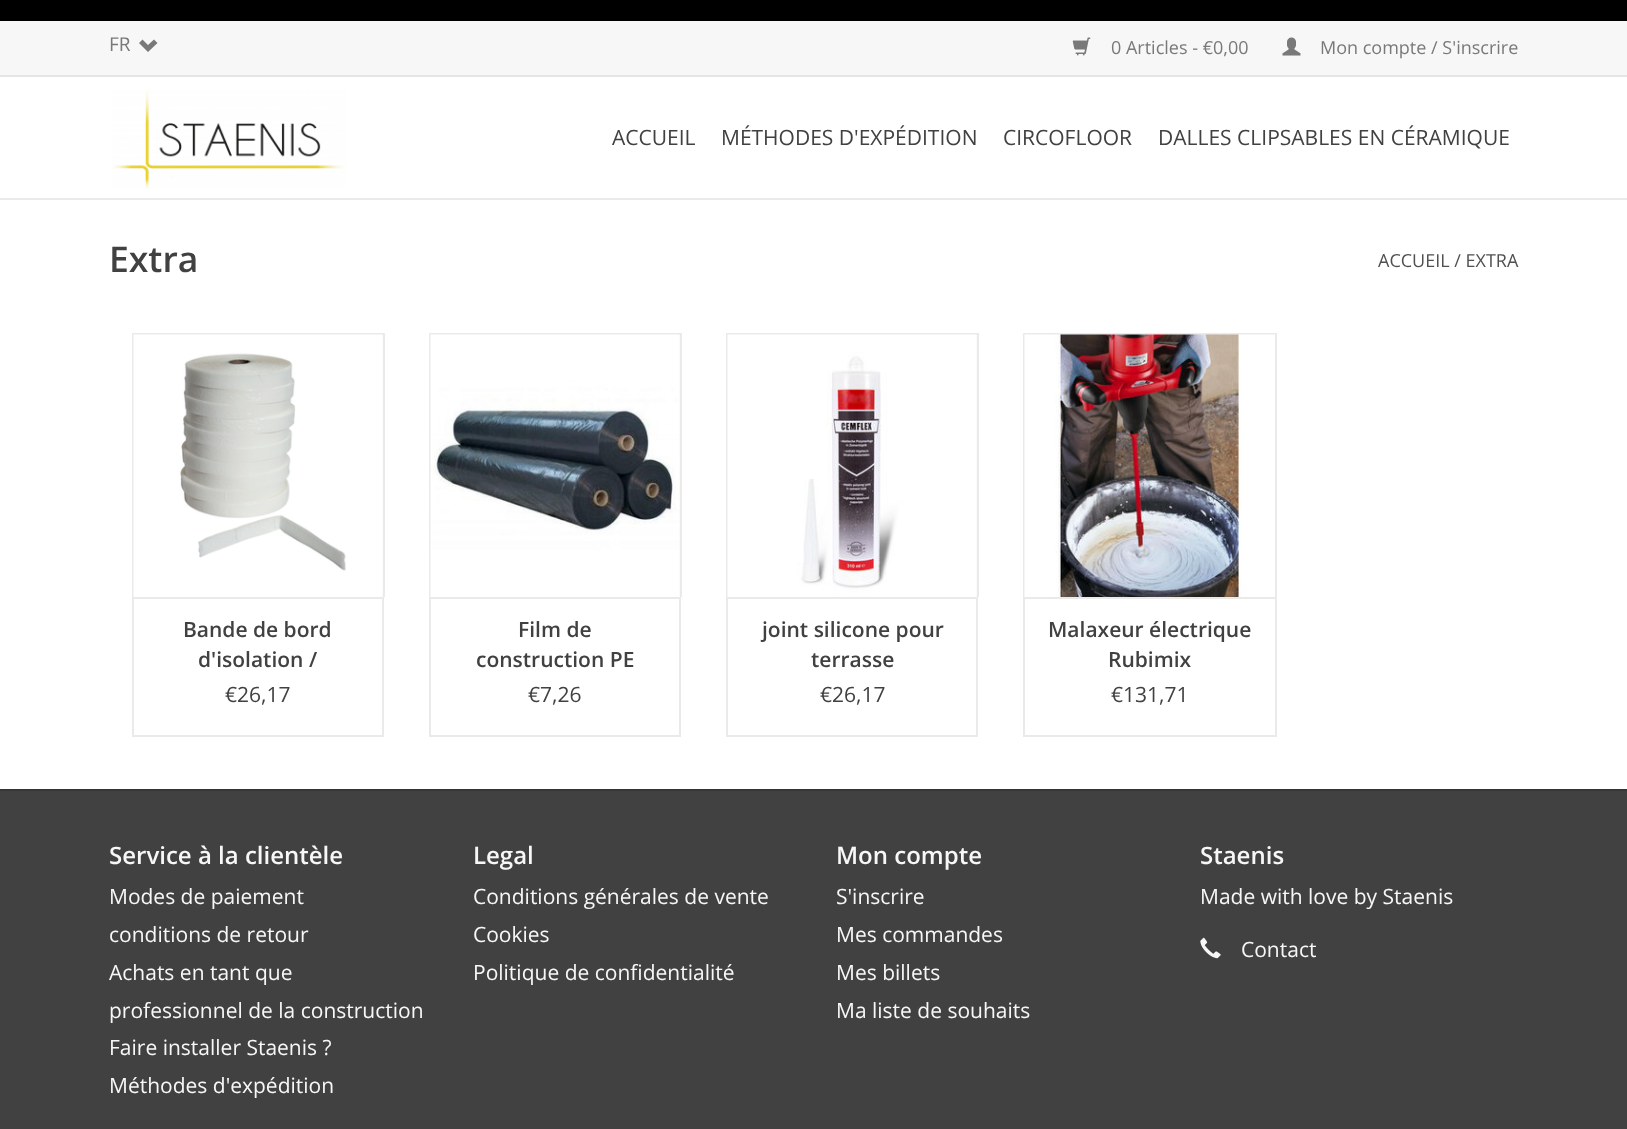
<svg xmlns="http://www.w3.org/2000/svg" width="1627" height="1129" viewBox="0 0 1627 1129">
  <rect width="100%" height="100%" fill="#fff"/>
  <path d="M0 0h1627v21H0z" fill="#000"/>
  <path d="M0 198h1627v2H0z" fill="#eaeaea"/>
  <path d="M0 21h1627v54H0z" fill="#f7f7f7"/>
  <path d="M0 75h1627v2H0z" fill="#e5e5e5"/>
  <path d="M139 43L148 52L157.5 43L154 39.5L148 45L142.5 39.5Z" fill="#797979"/>
  <image x="1072" y="37" width="19" height="19" href="img/1.png"/>
  <image x="1282" y="37" width="19" height="19" href="img/2.png"/>
  <image x="112" y="89" width="234" height="100" href="img/3.png"/>
  <path d="M382 335h1v262H382z" fill="#f7f7f7"/>
  <path d="M132 333h252v2H132z" fill="#eaeaea"/>
  <path d="M383 333h2v264H383z" fill="#eaeaea"/>
  <path d="M132 333h2v264H132z" fill="#eaeaea"/>
  <image x="133" y="334" width="250" height="263" href="img/4.png"/>
  <path d="M133 598h250v138H133z" fill="none" stroke="#eaeaea" stroke-width="2"/>
  <path d="M679 335h1v262H679z" fill="#f7f7f7"/>
  <path d="M429 333h252v2H429z" fill="#eaeaea"/>
  <path d="M680 333h2v264H680z" fill="#eaeaea"/>
  <path d="M429 333h2v264H429z" fill="#eaeaea"/>
  <image x="430" y="334" width="250" height="263" href="img/5.png"/>
  <path d="M430 598h250v138H430z" fill="none" stroke="#eaeaea" stroke-width="2"/>
  <path d="M976 335h1v262H976z" fill="#f7f7f7"/>
  <path d="M726 333h252v2H726z" fill="#eaeaea"/>
  <path d="M977 333h2v264H977z" fill="#eaeaea"/>
  <path d="M726 333h2v264H726z" fill="#eaeaea"/>
  <image x="727" y="334" width="250" height="263" href="img/6.png"/>
  <path d="M727 598h250v138H727z" fill="none" stroke="#eaeaea" stroke-width="2"/>
  <path d="M1023 333h254v2H1023z" fill="#eaeaea"/>
  <path d="M1275 333h2v264H1275z" fill="#eaeaea"/>
  <path d="M1023 333h2v264H1023z" fill="#eaeaea"/>
  <image x="1024" y="334" width="251" height="263" href="img/7.png"/>
  <path d="M1024 598h252v138H1024z" fill="none" stroke="#eaeaea" stroke-width="2"/>
  <path d="M0 791h1627v338H0z" fill="#414141"/>
  <path d="M0 789h1627v2H0z" fill="#363636"/>
  <image x="1200" y="937" width="21" height="22" href="img/8.png"/>
  <text x="109" y="51" font-family="Open Sans" font-size="19" fill="#797979">FR</text>
  <g font-family="Open Sans" font-size="18" fill="#797979">
    <text x="1111" y="54">0 Articles - €0,00</text>
    <text x="1320" y="54">Mon compte / S'inscrire</text>
  </g>
  <g font-family="Open Sans" font-size="21" fill="#414141">
    <text x="612" y="145">ACCUEIL</text>
    <text x="721" y="145">MÉTHODES D'EXPÉDITION</text>
    <text x="1003" y="145">CIRCOFLOOR</text>
    <text x="1158" y="145">DALLES CLIPSABLES EN CÉRAMIQUE</text>
  </g>
  <text x="109" y="272" font-family="Open Sans" font-size="35.5" font-weight="600" fill="#414141">Extra</text>
  <text x="1378" y="267" font-family="Open Sans" font-size="18" fill="#505050">ACCUEIL / EXTRA</text>
  <g font-family="Open Sans" font-size="21" font-weight="600" fill="#414141">
    <text x="183" y="637">Bande de bord</text>
    <text x="198" y="667">d'isolation /</text>
  </g>
  <text x="225" y="702" font-family="Open Sans" font-size="21" fill="#414141">€26,17</text>
  <g font-family="Open Sans" font-size="21" font-weight="600" fill="#414141">
    <text x="518" y="637">Film de</text>
    <text x="476" y="667">construction PE</text>
  </g>
  <text x="528" y="702" font-family="Open Sans" font-size="21" fill="#414141">€7,26</text>
  <g font-family="Open Sans" font-size="21" font-weight="600" fill="#414141">
    <text x="762" y="637">joint silicone pour</text>
    <text x="811" y="667">terrasse</text>
  </g>
  <text x="820" y="702" font-family="Open Sans" font-size="21" fill="#414141">€26,17</text>
  <g font-family="Open Sans" font-size="21" font-weight="600" fill="#414141">
    <text x="1048" y="637">Malaxeur électrique</text>
    <text x="1108" y="667">Rubimix</text>
  </g>
  <text x="1111" y="702" font-family="Open Sans" font-size="21" fill="#414141">€131,71</text>
  <text x="109" y="864" font-family="Open Sans" font-size="24" font-weight="600" fill="#f7f7f7">Service à la clientèle</text>
  <g font-family="Open Sans" font-size="21" fill="#f7f7f7">
    <text x="109" y="904">Modes de paiement</text>
    <text x="109" y="942">conditions de retour</text>
    <text x="109" y="980">Achats en tant que</text>
    <text x="109" y="1018">professionnel de la construction</text>
    <text x="109" y="1055">Faire installer Staenis ?</text>
    <text x="109" y="1093">Méthodes d'expédition</text>
  </g>
  <text x="473" y="864" font-family="Open Sans" font-size="24" font-weight="600" fill="#f7f7f7">Legal</text>
  <g font-family="Open Sans" font-size="21" fill="#f7f7f7">
    <text x="473" y="904">Conditions générales de vente</text>
    <text x="473" y="942">Cookies</text>
    <text x="473" y="980">Politique de confidentialité</text>
  </g>
  <text x="836" y="864" font-family="Open Sans" font-size="24" font-weight="600" fill="#f7f7f7">Mon compte</text>
  <g font-family="Open Sans" font-size="21" fill="#f7f7f7">
    <text x="836" y="904">S'inscrire</text>
    <text x="836" y="942">Mes commandes</text>
    <text x="836" y="980">Mes billets</text>
    <text x="836" y="1018">Ma liste de souhaits</text>
  </g>
  <text x="1200" y="864" font-family="Open Sans" font-size="24" font-weight="600" fill="#f7f7f7">Staenis</text>
  <g font-family="Open Sans" font-size="21" fill="#f7f7f7">
    <text x="1200" y="904">Made with love by Staenis</text>
    <text x="1241" y="957">Contact</text>
  </g>
</svg>
